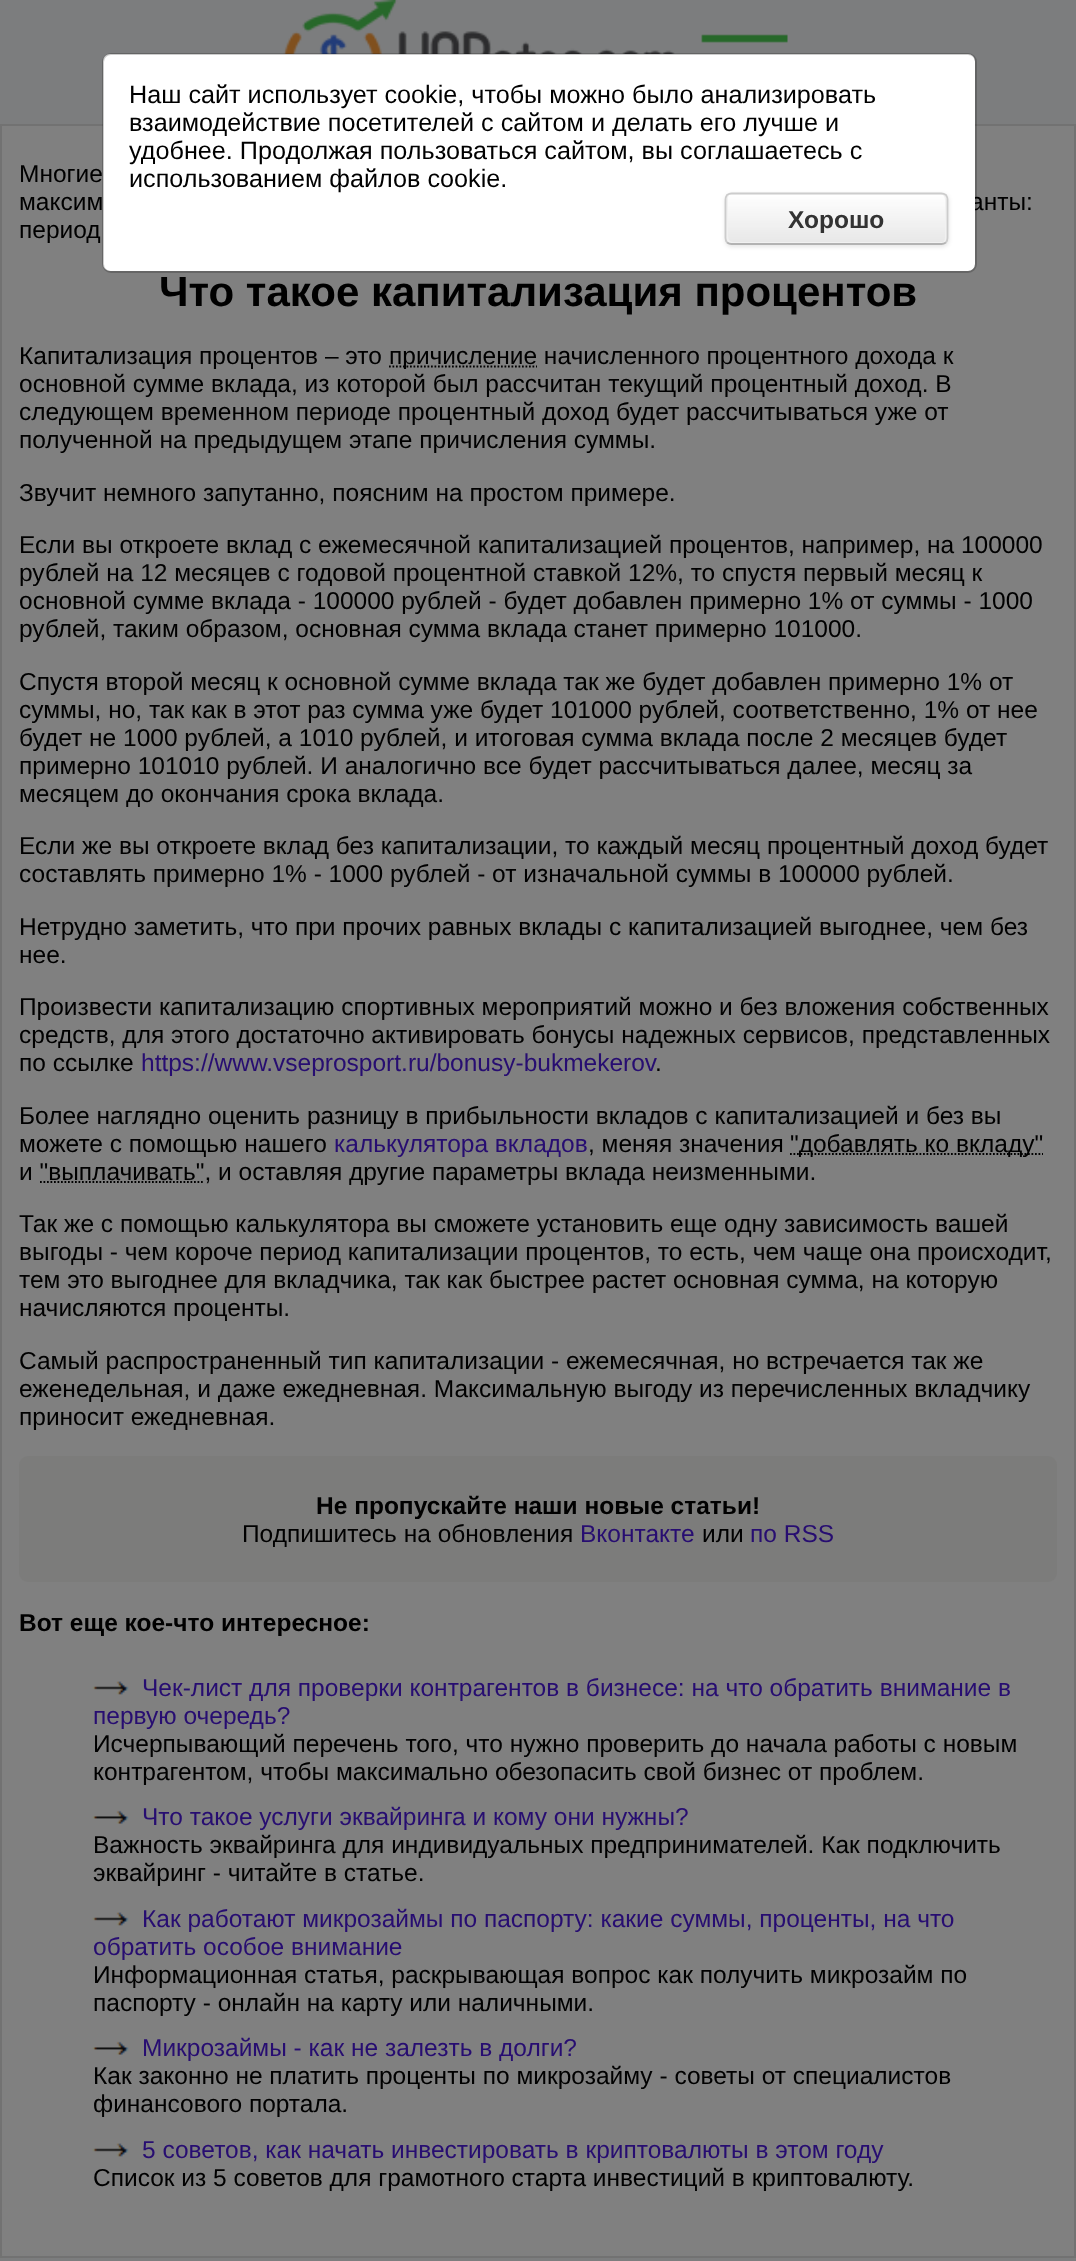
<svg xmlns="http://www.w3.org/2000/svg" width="1076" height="2261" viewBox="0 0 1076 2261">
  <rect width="100%" height="100%" fill="#7c7d7e"/>
  <image x="283" y="0" width="392" height="54" href="img/1.png"/>
  <image x="701" y="34" width="87" height="20" href="img/2.png"/>
  <path d="M1 125h1074v2132H1z" fill="#808080" stroke="#727272" stroke-width="2"/>
  <path d="M389 366.5H537" fill="none" stroke="#000" stroke-width="1.8" stroke-dasharray="1.75 1.75"/>
  <path d="M790 1154H1043" fill="none" stroke="#000" stroke-width="1.8" stroke-dasharray="1.75 1.75"/>
  <path d="M40 1182H204.5" fill="none" stroke="#000" stroke-width="1.8" stroke-dasharray="1.75 1.75"/>
  <rect x="19" y="1456" width="1038" height="126" rx="9" fill="#7c7c7b"/>
  <image x="92" y="1681" width="37" height="14" href="img/4.png"/>
  <image x="92" y="1810" width="37" height="14" href="img/5.png"/>
  <image x="92" y="1912" width="37" height="14" href="img/4.png"/>
  <image x="92" y="2041" width="37" height="14" href="img/5.png"/>
  <image x="92" y="2143" width="37" height="14" href="img/4.png"/>
  <g font-family="Liberation Sans" font-size="24.5" fill="#000">
    <text x="19" y="182">Многие</text>
    <text x="19" y="210">максим</text>
    <text x="970" y="210">анты:</text>
  </g>
  <rect x="103" y="54" width="872" height="217" rx="7" fill="#fff"/>
  <rect x="103" y="54" width="873" height="218" rx="8" fill="none" stroke="#00000033" stroke-width="2"/>
  <g font-family="Liberation Sans" font-size="25.2" fill="#000">
    <text x="129" y="187">использованием файлов cookie.</text>
    <text x="129" y="159">удобнее. Продолжая пользоваться сайтом, вы соглашаетесь с</text>
    <text x="129" y="131">взаимодействие посетителей с сайтом и делать его лучше и</text>
    <text x="129" y="103">Наш сайт использует cookie, чтобы можно было анализировать</text>
  </g>
  <rect x="725" y="194" width="224" height="53" rx="7" fill="#0000001a" filter="blur(2px)"/>
  <rect x="725" y="193" width="224" height="52" rx="7" fill="#f1f1f1"/>
  <image x="725" y="194" width="223" height="51" href="img/3.png"/>
  <path d="M940 243C948 243 947 239 947 232V206C947 198 948 194 940 194C943 194 945 197 945 200V238C945 241 943 243 940 243Z" fill="#f1f1f1"/>
  <path d="M729 194C727 195 726 197 726 199V238C726 241 728 243 731 243H942C944 243 946 242 946 240C946 241 944 242 943 242H733C730 242 728 239 728 236V198Z" fill="#f1f1f1"/>
  <path d="M946 242.5C944.5 243.5 943 244 941.5 244H731.5C730 244 728.5 243.5 727 242.5" fill="none" stroke="#b3b3b3" stroke-width="1.8"/>
  <path d="M727 242.5C726 241 725.5 239.5 725.5 238V199.5C725.5 198 726 196.5 727 195C728.5 194 730 193.5 731.5 193.5H941.5C943 193.5 944.5 194 946 195C947 196.5 947.5 198 947.5 199.5V238C947.5 239.5 947 241 946 242.5" fill="none" stroke="#ccc" stroke-width="1.8"/>
  <text x="788" y="228" font-family="Liberation Sans" font-size="24.5" font-weight="bold" fill="#333">Хорошо</text>
  <text x="19" y="238" font-family="Liberation Sans" font-size="24.5" fill="#000">период</text>
  <text x="159" y="306" font-family="Liberation Sans" font-size="42" font-weight="bold" fill="#000">Что такое капитализация процентов</text>
  <g font-family="Liberation Sans" font-size="24.5" fill="#000">
    <text x="19" y="364">Капитализация процентов – это</text>
    <text x="389" y="364">причисление начисленного процентного дохода к</text>
    <text x="19" y="392">основной сумме вклада, из которой был рассчитан текущий процентный доход. В</text>
    <text x="19" y="420">следующем временном периоде процентный доход будет рассчитываться уже от</text>
    <text x="19" y="448">полученной на предыдущем этапе причисления суммы.</text>
    <text x="19" y="501">Звучит немного запутанно, поясним на простом примере.</text>
    <text x="19" y="553">Если вы откроете вклад c ежемесячной капитализацией процентов, например, на 100000</text>
    <text x="19" y="581">рублей на 12 месяцев с годовой процентной ставкой 12%, то спустя первый месяц к</text>
    <text x="19" y="609">основной сумме вклада - 100000 рублей - будет добавлен примерно 1% от суммы - 1000</text>
    <text x="19" y="637">рублей, таким образом, основная сумма вклада станет примерно 101000.</text>
    <text x="19" y="690">Спустя второй месяц к основной сумме вклада так же будет добавлен примерно 1% от</text>
    <text x="19" y="718">суммы, но, так как в этот раз сумма уже будет 101000 рублей, соответственно, 1% от нее</text>
    <text x="19" y="746">будет не 1000 рублей, а 1010 рублей, и итоговая сумма вклада после 2 месяцев будет</text>
    <text x="19" y="774">примерно 101010 рублей. И аналогично все будет рассчитываться далее, месяц за</text>
    <text x="19" y="802">месяцем до окончания срока вклада.</text>
    <text x="19" y="854">Если же вы откроете вклад без капитализации, то каждый месяц процентный доход будет</text>
    <text x="19" y="882">составлять примерно 1% - 1000 рублей - от изначальной суммы в 100000 рублей.</text>
    <text x="19" y="935">Нетрудно заметить, что при прочих равных вклады с капитализацией выгоднее, чем без</text>
    <text x="19" y="963">нее.</text>
    <text x="19" y="1015">Произвести капитализацию спортивных мероприятий можно и без вложения собственных</text>
    <text x="19" y="1043">средств, для этого достаточно активировать бонусы надежных сервисов, представленных</text>
    <text x="19" y="1071">по ссылке</text>
  </g>
  <text x="141" y="1071" font-family="Liberation Sans" font-size="24.5" fill="#270d71">https://www.vseprosport.ru/bonusy-bukmekerov</text>
  <g font-family="Liberation Sans" font-size="24.5" fill="#000">
    <text x="655" y="1071">.</text>
    <text x="19" y="1124">Более наглядно оценить разницу в прибыльности вкладов с капитализацией и без вы</text>
    <text x="19" y="1152">можете с помощью нашего</text>
  </g>
  <text x="334" y="1152" font-family="Liberation Sans" font-size="24.5" fill="#270d71">калькулятора вкладов</text>
  <g font-family="Liberation Sans" font-size="24.5" fill="#000">
    <text x="588" y="1152">, меняя значения</text>
    <text x="790" y="1152">"добавлять ко вкладу"</text>
    <text x="19" y="1180">и "выплачивать", и оставляя другие параметры вклада неизменными.</text>
    <text x="19" y="1232">Так же с помощью калькулятора вы сможете установить еще одну зависимость вашей</text>
    <text x="19" y="1260">выгоды - чем короче период капитализации процентов, то есть, чем чаще она происходит,</text>
    <text x="19" y="1288">тем это выгоднее для вкладчика, так как быстрее растет основная сумма, на которую</text>
    <text x="19" y="1316">начисляются проценты.</text>
    <text x="19" y="1369">Самый распространенный тип капитализации - ежемесячная, но встречается так же</text>
    <text x="19" y="1397">еженедельная, и даже ежедневная. Максимальную выгоду из перечисленных вкладчику</text>
    <text x="19" y="1425">приносит ежедневная.</text>
  </g>
  <text x="316" y="1514" font-family="Liberation Sans" font-size="24.5" font-weight="bold" fill="#000">Не пропускайте наши новые статьи!</text>
  <text x="242" y="1542" font-family="Liberation Sans" font-size="24.5" fill="#000">Подпишитесь на обновления</text>
  <text x="580" y="1542" font-family="Liberation Sans" font-size="24.5" fill="#270d71">Вконтакте</text>
  <text x="702" y="1542" font-family="Liberation Sans" font-size="24.5" fill="#000">или</text>
  <text x="750" y="1542" font-family="Liberation Sans" font-size="24.5" fill="#270d71">по RSS</text>
  <text x="19" y="1631" font-family="Liberation Sans" font-size="24.5" font-weight="bold" fill="#000">Вот еще кое-что интересное:</text>
  <g font-family="Liberation Sans" font-size="24.5" fill="#270d71">
    <text x="142" y="1696">Чек-лист для проверки контрагентов в бизнесе: на что обратить внимание в</text>
    <text x="93" y="1724">первую очередь?</text>
  </g>
  <g font-family="Liberation Sans" font-size="24.5" fill="#000">
    <text x="93" y="1752">Исчерпывающий перечень того, что нужно проверить до начала работы с новым</text>
    <text x="93" y="1780">контрагентом, чтобы максимально обезопасить свой бизнес от проблем.</text>
  </g>
  <text x="142" y="1825" font-family="Liberation Sans" font-size="24.5" fill="#270d71">Что такое услуги эквайринга и кому они нужны?</text>
  <g font-family="Liberation Sans" font-size="24.5" fill="#000">
    <text x="93" y="1853">Важность эквайринга для индивидуальных предпринимателей. Как подключить</text>
    <text x="93" y="1881">эквайринг - читайте в статье.</text>
  </g>
  <g font-family="Liberation Sans" font-size="24.5" fill="#270d71">
    <text x="142" y="1927">Как работают микрозаймы по паспорту: какие суммы, проценты, на что</text>
    <text x="93" y="1955">обратить особое внимание</text>
  </g>
  <g font-family="Liberation Sans" font-size="24.5" fill="#000">
    <text x="93" y="1983">Информационная статья, раскрывающая вопрос как получить микрозайм по</text>
    <text x="93" y="2011">паспорту - онлайн на карту или наличными.</text>
  </g>
  <text x="142" y="2056" font-family="Liberation Sans" font-size="24.5" fill="#270d71">Микрозаймы - как не залезть в долги?</text>
  <g font-family="Liberation Sans" font-size="24.5" fill="#000">
    <text x="93" y="2084">Как законно не платить проценты по микрозайму - советы от специалистов</text>
    <text x="93" y="2112">финансового портала.</text>
  </g>
  <text x="142" y="2158" font-family="Liberation Sans" font-size="24.5" fill="#270d71">5 советов, как начать инвестировать в криптовалюты в этом году</text>
  <text x="93" y="2186" font-family="Liberation Sans" font-size="24.5" fill="#000">Список из 5 советов для грамотного старта инвестиций в криптовалюту.</text>
</svg>
